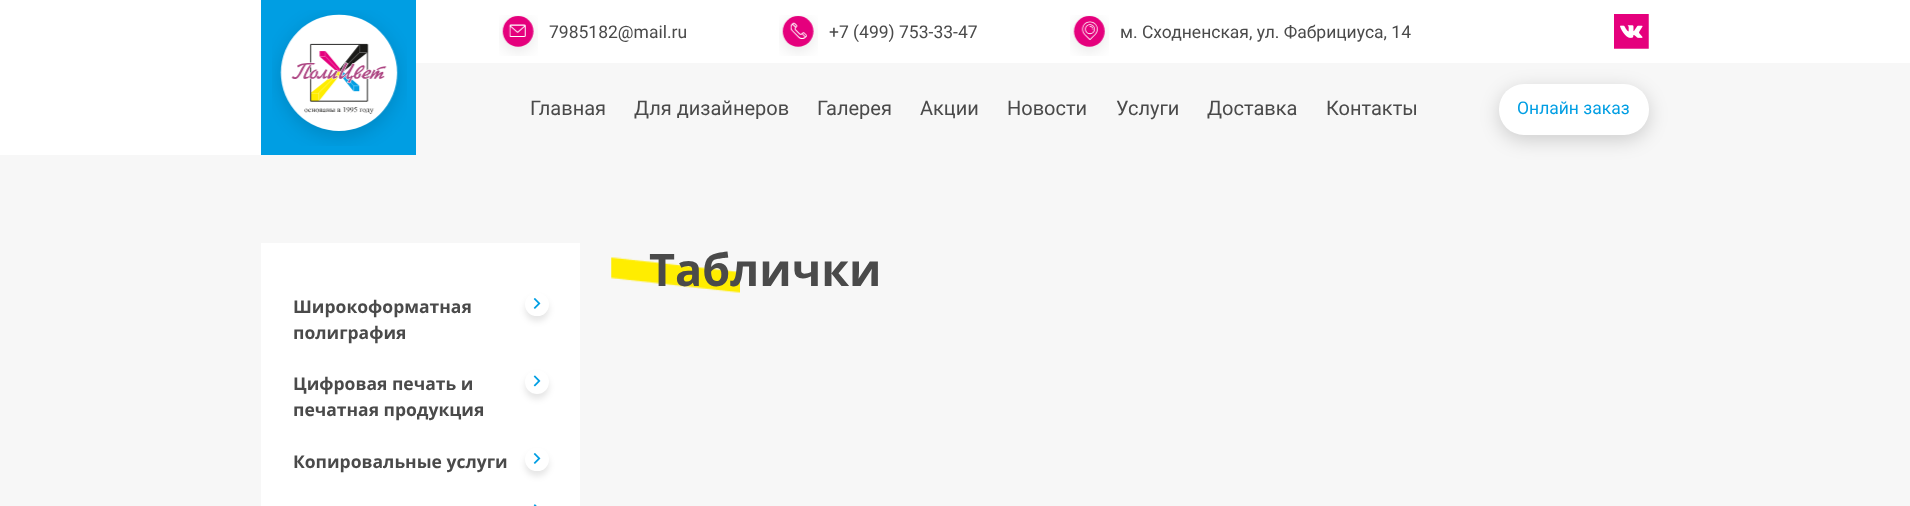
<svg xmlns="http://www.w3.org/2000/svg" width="1910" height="506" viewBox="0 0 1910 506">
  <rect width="100%" height="100%" fill="#fff"/>
  <path d="M261 0h155v155H261z" fill="#009ee3"/>
  <image x="272" y="10" width="135" height="136" href="img/1.png"/>
  <image x="499" y="15" width="39" height="41" href="img/2.png"/>
  <image x="779" y="15" width="39" height="41" href="img/3.png"/>
  <image x="1070" y="15" width="39" height="41" href="img/4.png"/>
  <image x="1614" y="14" width="35" height="35" href="img/5.png"/>
  <path d="M416 63h1252v92H416z" fill="#f7f7f7"/>
  <path d="M0 155h1910v351H0z" fill="#f7f7f7"/>
  <rect x="1499" y="89" width="150" height="51" rx="25" fill="#0000002b" filter="blur(9.5px)"/>
  <rect x="1499" y="84" width="150" height="51" rx="25" fill="#fff"/>
  <path d="M1668 63h242v92H1668z" fill="#f7f7f7"/>
  <image x="611" y="257" width="129" height="36" href="img/6.png"/>
  <path d="M261 243h319v263H261z" fill="#fff"/>
  <rect x="525" y="298" width="24" height="23" rx="11.5" fill="#0000001a" filter="blur(3px)"/>
  <rect x="525" y="293" width="24" height="23" rx="11.5" fill="#fff"/>
  <image x="533" y="298" width="8" height="11" href="img/7.png"/>
  <rect x="525" y="375" width="24" height="24" rx="12" fill="#0000001a" filter="blur(3px)"/>
  <circle cx="537" cy="382" r="12" fill="#fff"/>
  <image x="533" y="375" width="8" height="12" href="img/8.png"/>
  <rect x="525" y="453" width="24" height="23" rx="11.5" fill="#0000001a" filter="blur(3px)"/>
  <rect x="525" y="448" width="24" height="23" rx="11.5" fill="#fff"/>
  <image x="533" y="453" width="8" height="11" href="img/7.png"/>
  <image x="533" y="504" width="4" height="2" href="img/9.png"/>
  <g font-family="Roboto" font-size="17.5" fill="#4a4a4a">
    <text x="549" y="38">7985182@mail.ru</text>
    <text x="829" y="38">+7 (499) 753-33-47</text>
    <text x="1120" y="38">м. Сходненская, ул. Фабрициуса, 14</text>
  </g>
  <g font-family="Roboto" font-size="20" fill="#4a4a4a">
    <text x="530" y="115">Главная</text>
    <text x="634" y="115">Для дизайнеров</text>
    <text x="817" y="115">Галерея</text>
    <text x="920" y="115">Акции</text>
    <text x="1007" y="115">Новости</text>
    <text x="1116" y="115">Услуги</text>
    <text x="1207" y="115">Доставка</text>
    <text x="1326" y="115">Контакты</text>
  </g>
  <text x="1517" y="114" font-family="Roboto" font-size="17.5" fill="#009ee3">Онлайн заказ</text>
  <text x="649" y="286" font-family="Open Sans" font-size="45" font-weight="bold" fill="#4a4a4a">Таблички</text>
  <g font-family="Open Sans" font-size="17.5" font-weight="bold" fill="#4a4a4a">
    <text x="293" y="313">Широкоформатная</text>
    <text x="293" y="339">полиграфия</text>
    <text x="293" y="390">Цифровая печать и</text>
    <text x="293" y="416">печатная продукция</text>
    <text x="293" y="468">Копировальные услуги</text>
  </g>
</svg>
